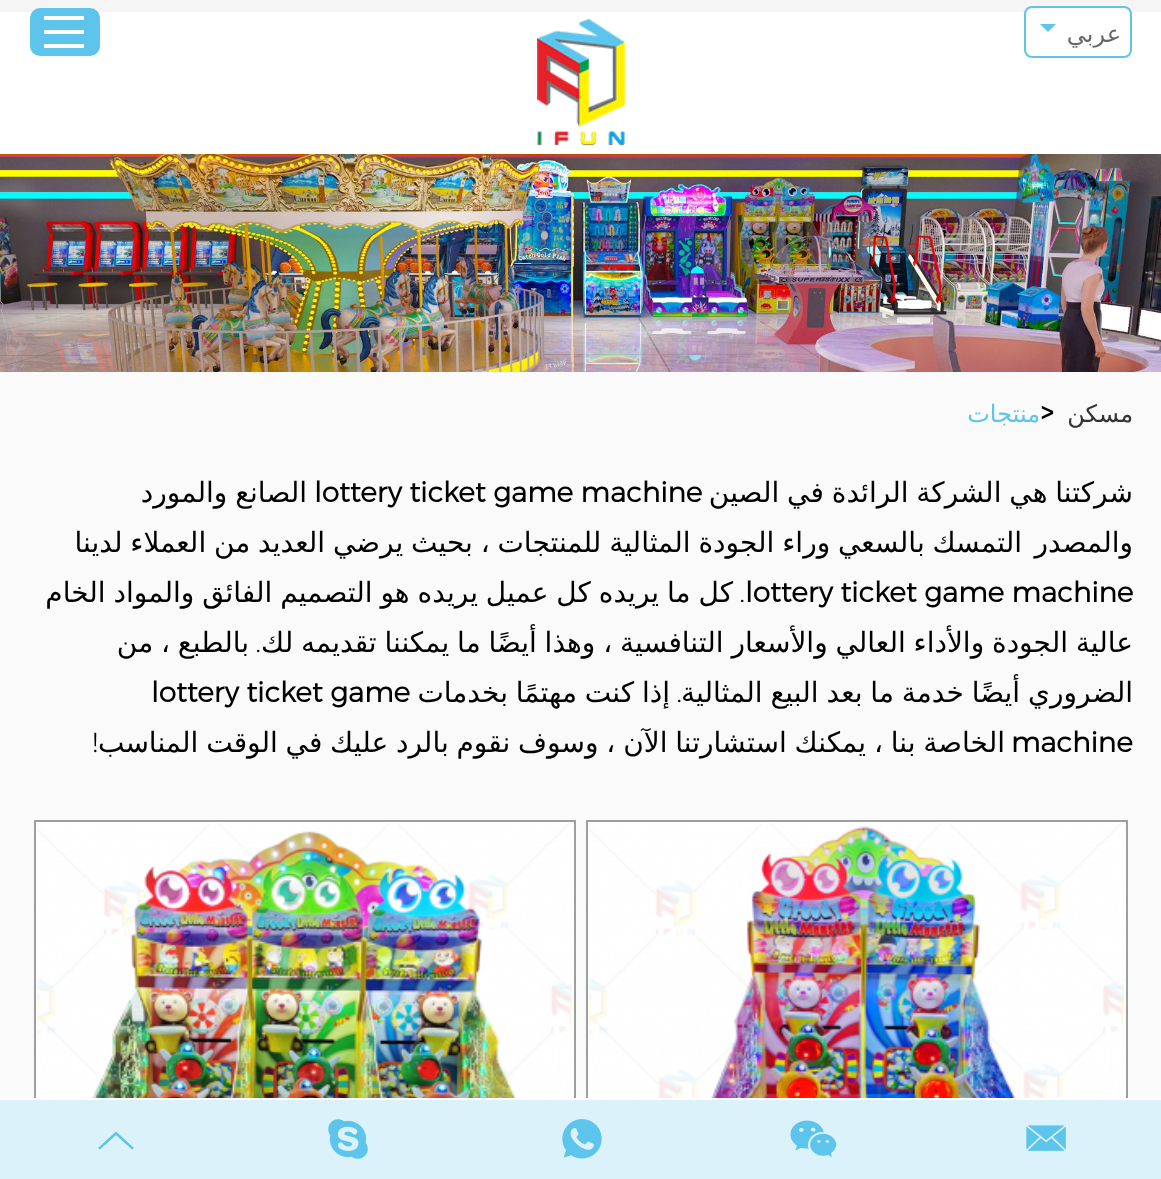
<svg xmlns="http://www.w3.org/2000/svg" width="1161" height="1179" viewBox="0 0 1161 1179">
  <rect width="100%" height="100%" fill="#fafafa"/>
  <path d="M0 12h1161v142H0z" fill="#fff"/>
  <path d="M0 0h1161v12H0z" fill="#f5f5f5"/>
  <rect x="1025" y="7" width="106" height="50" rx="7" fill="#fff" stroke="#5dc4eb" stroke-width="2"/>
  <path d="M1040 24H1056L1048 32Z" fill="#5dc4eb"/>
  <image x="537" y="19" width="88" height="127" href="img/1.png"/>
  <rect x="30" y="8" width="70" height="48" rx="10" fill="#5dc4eb"/>
  <path d="M44 16h40v4H44z" fill="#fff"/>
  <path d="M44 30h40v4H44z" fill="#fff"/>
  <path d="M44 44h40v4H44z" fill="#fff"/>
  <image x="0" y="154" width="1161" height="218" href="img/2.png"/>
  <path d="M588 822h538v276H588z" fill="#fff"/>
  <path d="M587 821h540v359H587z" fill="none" stroke="#9e9e9e" stroke-width="2"/>
  <image x="588" y="823" width="537" height="275" href="img/3.png"/>
  <path d="M36 822h538v276H36z" fill="#fff"/>
  <path d="M35 821h540v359H35z" fill="none" stroke="#9e9e9e" stroke-width="2"/>
  <image x="36" y="823" width="537" height="275" href="img/4.png"/>
  <path d="M0 1100h1161v79H0z" fill="#dcf2fb"/>
  <path d="M0 1098h1161v2H0z" fill="#fff"/>
  <image x="1026" y="1125" width="40" height="26" href="img/5.png"/>
  <image x="790" y="1120" width="47" height="37" href="img/6.png"/>
  <image x="562" y="1119" width="40" height="40" href="img/7.png"/>
  <image x="328" y="1119" width="40" height="40" href="img/8.png"/>
  <path d="M116 1131.5L134 1148L132 1149.5L116 1135L100 1149.5L98 1148Z" fill="#5dc4eb"/>
  <text x="1121" y="42" font-family="DejaVu Sans" font-size="24" direction="rtl" fill="#666">عربي</text>
  <text x="1133" y="422" font-family="DejaVu Sans" font-size="24" direction="rtl" fill="#333">مسكن</text>
  <text x="1040" y="422" font-family="Montserrat" font-size="24" fill="#000">&gt;</text>
  <text x="1040" y="422" font-family="DejaVu Sans" font-size="24" direction="rtl" fill="#5dc4eb">منتجات</text>
  <text x="1133" y="502" word-spacing="-1" font-family="DejaVu Sans" font-size="28" direction="rtl" fill="#000">شركتنا هي الشركة الرائدة في الصين</text>
  <text x="314" y="502" font-family="Montserrat" font-size="28" font-weight="bold" fill="#000">lottery ticket game machine</text>
  <g font-family="DejaVu Sans" font-size="28" direction="rtl" fill="#000">
    <text x="307" y="502" word-spacing="-1">الصانع والمورد</text>
    <text x="1022" y="552" word-spacing="-1.1">التمسك بالسعي وراء الجودة المثالية للمنتجات ، بحيث يرضي العديد من العملاء لدينا</text>
    <text x="1133" y="552">والمصدر</text>
  </g>
  <text x="745" y="602" font-family="Montserrat" font-size="28" font-weight="bold" fill="#000">lottery ticket game machine</text>
  <text x="733" y="602" word-spacing="-1" font-family="DejaVu Sans" font-size="28" direction="rtl" fill="#000">كل ما يريده كل عميل يريده هو التصميم الفائق والمواد الخام</text>
  <text x="745" y="602" font-family="Montserrat" font-size="28" font-weight="300" direction="rtl" fill="#000">.</text>
  <text x="1133" y="652" word-spacing="-1.1" font-family="DejaVu Sans" font-size="28" direction="rtl" fill="#000">عالية الجودة والأداء العالي والأسعار التنافسية ، وهذا أيضًا ما يمكننا تقديمه لك</text>
  <text x="261" y="652" font-family="Montserrat" font-size="28" font-weight="300" direction="rtl" fill="#000">.</text>
  <g font-family="DejaVu Sans" font-size="28" direction="rtl" fill="#000">
    <text x="249" y="652" word-spacing="-1.1">بالطبع ، من</text>
    <text x="1133" y="702" word-spacing="-1">الضروري أيضًا خدمة ما بعد البيع المثالية</text>
  </g>
  <text x="682" y="702" font-family="Montserrat" font-size="28" font-weight="300" direction="rtl" fill="#000">.</text>
  <text x="670" y="702" word-spacing="-1" font-family="DejaVu Sans" font-size="28" direction="rtl" fill="#000">إذا كنت مهتمًا بخدمات</text>
  <g font-family="Montserrat" font-size="28" font-weight="bold" fill="#000">
    <text x="151" y="702">lottery ticket game</text>
    <text x="1011" y="752">machine</text>
  </g>
  <text x="1005" y="752" word-spacing="-1.1" font-family="DejaVu Sans" font-size="28" direction="rtl" fill="#000">الخاصة بنا ، يمكنك استشارتنا الآن ، وسوف نقوم بالرد عليك في الوقت المناسب</text>
  <text x="98" y="752" font-family="Montserrat" font-size="28" font-weight="300" direction="rtl" fill="#000">!</text>
</svg>
